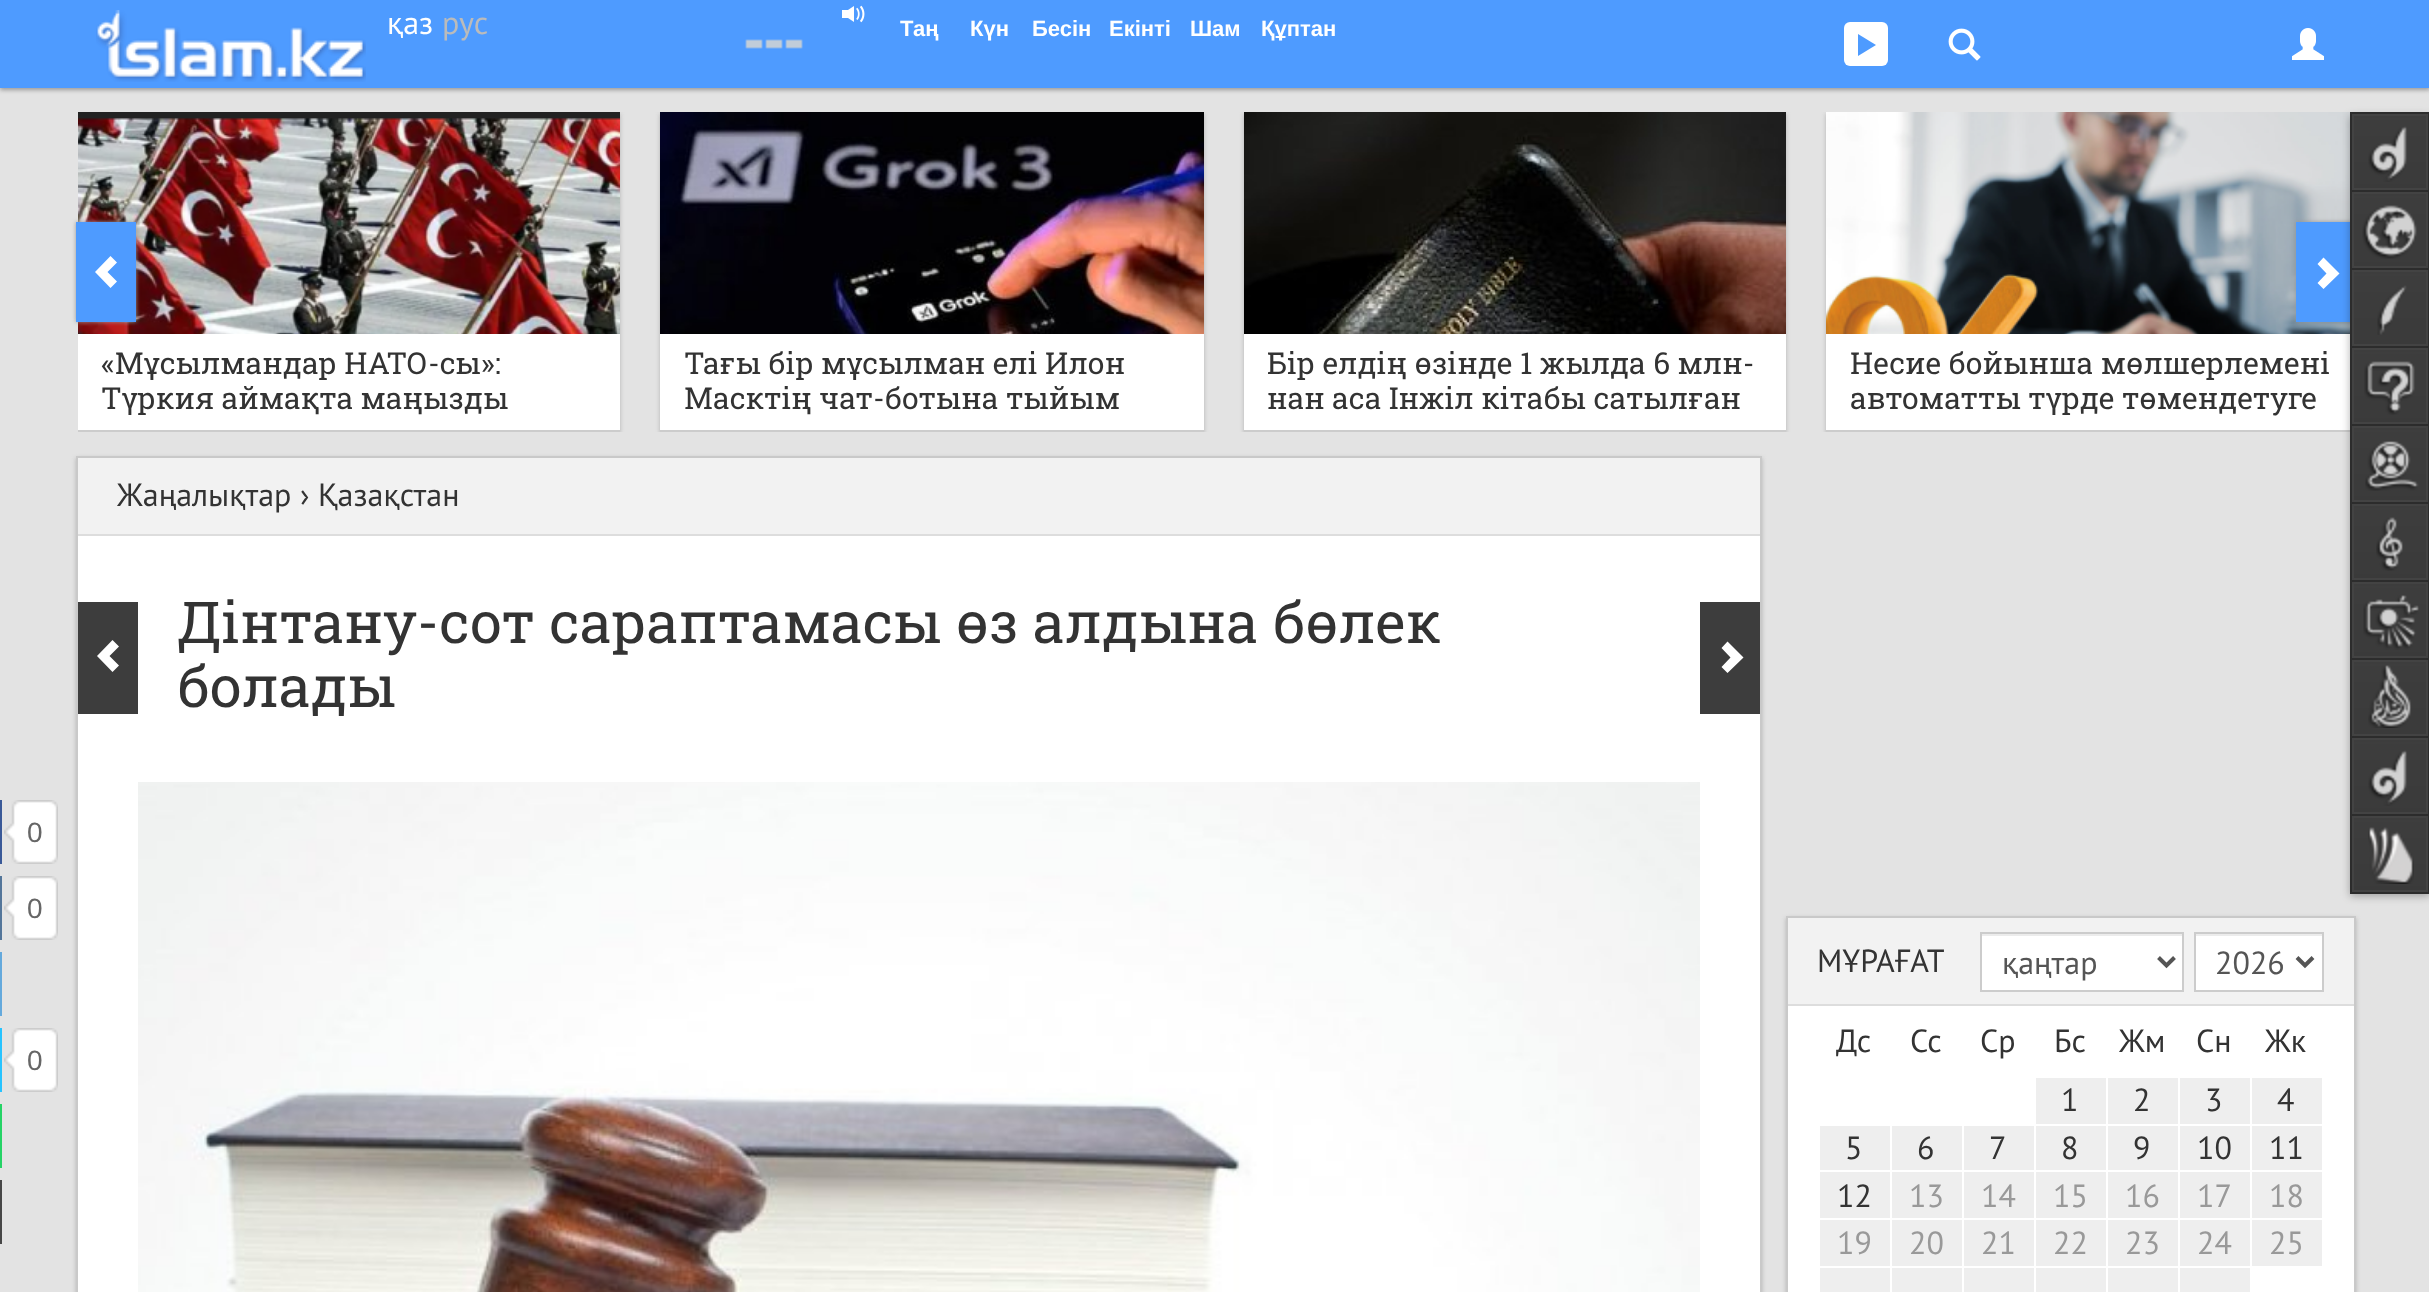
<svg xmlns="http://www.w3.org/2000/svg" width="2429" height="1292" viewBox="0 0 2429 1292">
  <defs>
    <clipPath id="clip1"><path d="M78 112h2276v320H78z"/></clipPath>
    <clipPath id="clip2"><path d="M1268 346h494v70H1268z"/></clipPath>
  </defs>
  <rect width="100%" height="100%" fill="#e3e3e3"/>
  <path d="M0 2h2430v88H0z" fill="#999" filter="blur(2px)"/>
  <path d="M0 0h2429v88H0z" fill="#4e9bff"/>
  <image x="96" y="10" width="270" height="72" href="img/1.png"/>
  <image x="842" y="5" width="23" height="18" href="img/2.png"/>
  <image x="745" y="39" width="58" height="10" href="img/3.png"/>
  <rect x="1844" y="22" width="44" height="44" rx="6" fill="#fff"/>
  <path d="M1858 56L1876 45L1858 34Z" fill="#4e9bff"/>
  <image x="1948" y="28" width="33" height="33" href="img/4.png"/>
  <image x="2292" y="28" width="32" height="32" href="img/5.png"/>
  <g clip-path="url(#clip1)">
    <path d="M78 114h542v320H78z" fill="#b3b3b3" filter="blur(2px)"/>
  </g>
  <image x="78" y="112" width="542" height="222" href="img/6.png"/>
  <path d="M76 222h60v100H76z" fill="#999" filter="blur(2px)"/>
  <path d="M76 222h60v100H76z" fill="#4e9bff"/>
  <path d="M95 272L110.5 288L117 281.5L107.5 272L117 262.5L110.5 256Z" fill="#fff"/>
  <g clip-path="url(#clip1)">
    <path d="M1826 114h544v320H1826z" fill="#b3b3b3" filter="blur(2px)"/>
  </g>
  <image x="1826" y="112" width="524" height="222" href="img/9.png"/>
  <path d="M2296 222h60v100H2296z" fill="#999" filter="blur(2px)"/>
  <path d="M2296 222h54v100H2296z" fill="#4e9bff"/>
  <path d="M2317.5 283L2326.5 273.5L2317.5 264L2323.5 257.5L2339.5 273.5L2323.5 289Z" fill="#fff"/>
  <path d="M78 334h542v96H78z" fill="#fff"/>
  <path d="M78 430h542v2H78z" fill="#ccc"/>
  <g clip-path="url(#clip1)">
    <path d="M660 114h544v320H660z" fill="#b3b3b3" filter="blur(2px)"/>
  </g>
  <image x="660" y="112" width="544" height="222" href="img/7.png"/>
  <path d="M660 334h544v96H660z" fill="#fff"/>
  <path d="M660 430h544v2H660z" fill="#ccc"/>
  <g clip-path="url(#clip1)">
    <path d="M1244 114h542v320H1244z" fill="#b3b3b3" filter="blur(2px)"/>
  </g>
  <image x="1244" y="112" width="542" height="222" href="img/8.png"/>
  <path d="M1244 334h542v96H1244z" fill="#fff"/>
  <path d="M1244 430h542v2H1244z" fill="#ccc"/>
  <path d="M1826 334h524v96H1826z" fill="#fff"/>
  <path d="M1826 430h528v2H1826z" fill="#ccc"/>
  <path d="M2350 116h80v780H2350z" fill="#0000004d" filter="blur(4px)"/>
  <path d="M2351 113h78v78H2351z" fill="none" stroke="#2c2c2c" stroke-width="2"/>
  <image x="2354" y="116" width="72" height="72" href="img/10.png"/>
  <path d="M2353 115h74v74H2353z" fill="none" stroke="#434343" stroke-width="2"/>
  <image x="2368" y="126" width="39" height="56" href="img/11.png"/>
  <path d="M2351 191h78v78H2351z" fill="none" stroke="#2c2c2c" stroke-width="2"/>
  <image x="2354" y="194" width="72" height="72" href="img/10.png"/>
  <path d="M2353 193h74v74H2353z" fill="none" stroke="#434343" stroke-width="2"/>
  <image x="2362" y="205" width="55" height="54" href="img/12.png"/>
  <path d="M2351 269h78v78H2351z" fill="none" stroke="#2c2c2c" stroke-width="2"/>
  <image x="2354" y="272" width="72" height="72" href="img/10.png"/>
  <path d="M2353 271h74v74H2353z" fill="none" stroke="#434343" stroke-width="2"/>
  <image x="2377" y="285" width="30" height="50" href="img/13.png"/>
  <path d="M2351 347h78v78H2351z" fill="none" stroke="#2c2c2c" stroke-width="2"/>
  <image x="2354" y="350" width="72" height="72" href="img/10.png"/>
  <path d="M2353 349h74v74H2353z" fill="none" stroke="#434343" stroke-width="2"/>
  <image x="2364" y="361" width="51" height="54" href="img/14.png"/>
  <path d="M2351 425h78v78H2351z" fill="none" stroke="#2c2c2c" stroke-width="2"/>
  <image x="2354" y="428" width="72" height="72" href="img/10.png"/>
  <path d="M2353 427h74v74H2353z" fill="none" stroke="#434343" stroke-width="2"/>
  <image x="2365" y="441" width="54" height="50" href="img/15.png"/>
  <path d="M2351 503h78v78H2351z" fill="none" stroke="#2c2c2c" stroke-width="2"/>
  <image x="2354" y="506" width="72" height="72" href="img/10.png"/>
  <path d="M2353 505h74v74H2353z" fill="none" stroke="#434343" stroke-width="2"/>
  <image x="2376" y="517" width="27" height="54" href="img/16.png"/>
  <path d="M2351 581h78v78H2351z" fill="none" stroke="#2c2c2c" stroke-width="2"/>
  <image x="2354" y="584" width="72" height="72" href="img/10.png"/>
  <path d="M2353 583h74v74H2353z" fill="none" stroke="#434343" stroke-width="2"/>
  <image x="2363" y="595" width="56" height="55" href="img/17.png"/>
  <path d="M2351 659h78v78H2351z" fill="none" stroke="#2c2c2c" stroke-width="2"/>
  <image x="2354" y="662" width="72" height="72" href="img/10.png"/>
  <path d="M2353 661h74v74H2353z" fill="none" stroke="#434343" stroke-width="2"/>
  <image x="2368" y="665" width="43" height="63" href="img/18.png"/>
  <path d="M2351 737h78v78H2351z" fill="none" stroke="#2c2c2c" stroke-width="2"/>
  <image x="2354" y="740" width="72" height="72" href="img/10.png"/>
  <path d="M2353 739h74v74H2353z" fill="none" stroke="#434343" stroke-width="2"/>
  <image x="2368" y="750" width="39" height="56" href="img/11.png"/>
  <path d="M2351 815h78v78H2351z" fill="none" stroke="#2c2c2c" stroke-width="2"/>
  <image x="2354" y="818" width="72" height="72" href="img/10.png"/>
  <path d="M2353 817h74v74H2353z" fill="none" stroke="#434343" stroke-width="2"/>
  <image x="2368" y="827" width="46" height="57" href="img/19.png"/>
  <path d="M76 458h1686v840H76z" fill="#b3b3b3" filter="blur(2px)"/>
  <path d="M78 536h1682v756H78z" fill="#fff"/>
  <path d="M77 457h1684v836H77z" fill="none" stroke="#c9c9c9" stroke-width="2"/>
  <path d="M78 458h1682v76H78z" fill="#f2f2f2"/>
  <path d="M78 534h1682v2H78z" fill="#ddd"/>
  <path d="M78 602h60v112H78z" fill="#3d3d3d"/>
  <path d="M97 656L112.5 672L119 665.5L109.5 656L119 646.5L112.5 640Z" fill="#fff"/>
  <path d="M1700 602h60v112H1700z" fill="#3d3d3d"/>
  <path d="M1721.5 667L1730.5 657.5L1721.5 648L1727.5 641.5L1743.5 657.5L1727.5 673Z" fill="#fff"/>
  <path d="M0 800h2v64H0z" fill="#3a5998"/>
  <image x="20" y="800" width="38" height="64" href="img/20.png"/>
  <image x="4" y="800" width="16" height="64" href="img/21.png"/>
  <path d="M0 876h2v64H0z" fill="#54769a"/>
  <image x="20" y="876" width="38" height="64" href="img/20.png"/>
  <image x="4" y="876" width="16" height="64" href="img/21.png"/>
  <path d="M0 952h2v64H0z" fill="#64a9dc"/>
  <path d="M0 1028h2v64H0z" fill="#27c3ff"/>
  <image x="20" y="1028" width="38" height="64" href="img/20.png"/>
  <image x="4" y="1028" width="16" height="64" href="img/21.png"/>
  <path d="M0 1104h2v64H0z" fill="#25d366"/>
  <path d="M0 1180h2v64H0z" fill="#474747"/>
  <image x="138" y="782" width="1562" height="510" href="img/22.png"/>
  <path d="M1786 918h570v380H1786z" fill="#b3b3b3" filter="blur(2px)"/>
  <path d="M1788 1006h566v286H1788z" fill="#fff"/>
  <path d="M1787 917h568v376H1787z" fill="none" stroke="#c9c9c9" stroke-width="2"/>
  <path d="M1788 918h566v86H1788z" fill="#f2f2f2"/>
  <path d="M1788 1004h566v2H1788z" fill="#ddd"/>
  <path d="M1982 936h200v54H1982z" fill="#fff"/>
  <path d="M1982 934h200v2H1982z" fill="#ececec"/>
  <path d="M1981 933h202v58H1981z" fill="none" stroke="#ccc" stroke-width="2"/>
  <path d="M2158.5 957.5L2166.5 965.5L2174.5 957.5" fill="none" stroke="#555" stroke-width="4"/>
  <path d="M2196 936h126v54H2196z" fill="#fff"/>
  <path d="M2196 934h126v2H2196z" fill="#ececec"/>
  <path d="M2195 933h128v58H2195z" fill="none" stroke="#ccc" stroke-width="2"/>
  <path d="M2297 957.5L2305 965.5L2313 957.5" fill="none" stroke="#555" stroke-width="4"/>
  <path d="M2036 1078h70v46H2036z" fill="#eee"/>
  <path d="M2108 1078h70v46H2108z" fill="#eee"/>
  <path d="M2180 1078h70v46H2180z" fill="#eee"/>
  <path d="M2252 1078h70v46H2252z" fill="#eee"/>
  <path d="M1820 1126h70v44H1820z" fill="#eee"/>
  <path d="M1892 1126h70v44H1892z" fill="#eee"/>
  <path d="M1964 1126h70v44H1964z" fill="#eee"/>
  <path d="M2036 1126h70v44H2036z" fill="#eee"/>
  <path d="M2108 1126h70v44H2108z" fill="#eee"/>
  <path d="M2180 1126h70v44H2180z" fill="#eee"/>
  <path d="M2252 1126h70v44H2252z" fill="#eee"/>
  <path d="M1820 1172h70v46H1820z" fill="#eee"/>
  <path d="M1892 1172h70v46H1892z" fill="#eee"/>
  <path d="M1964 1172h70v46H1964z" fill="#eee"/>
  <path d="M2036 1172h70v46H2036z" fill="#eee"/>
  <path d="M2108 1172h70v46H2108z" fill="#eee"/>
  <path d="M2180 1172h70v46H2180z" fill="#eee"/>
  <path d="M2252 1172h70v46H2252z" fill="#eee"/>
  <path d="M1820 1220h70v46H1820z" fill="#eee"/>
  <path d="M1892 1220h70v46H1892z" fill="#eee"/>
  <path d="M1964 1220h70v46H1964z" fill="#eee"/>
  <path d="M2036 1220h70v46H2036z" fill="#eee"/>
  <path d="M2108 1220h70v46H2108z" fill="#eee"/>
  <path d="M2180 1220h70v46H2180z" fill="#eee"/>
  <path d="M2252 1220h70v46H2252z" fill="#eee"/>
  <path d="M1820 1268h70v24H1820z" fill="#eee"/>
  <path d="M1892 1268h70v24H1892z" fill="#eee"/>
  <path d="M1964 1268h70v24H1964z" fill="#eee"/>
  <path d="M2036 1268h70v24H2036z" fill="#eee"/>
  <path d="M2108 1268h70v24H2108z" fill="#eee"/>
  <path d="M2180 1268h70v24H2180z" fill="#eee"/>
  <text x="387" y="34" font-family="PT Sans" font-size="32" fill="#fff">қаз</text>
  <text x="442" y="34" font-family="PT Sans" font-size="32" fill="#bbb">рус</text>
  <g font-family="Liberation Sans" font-size="22" font-weight="bold" fill="#fff">
    <text x="900" y="36">Таң</text>
    <text x="970" y="36">Күн</text>
    <text x="1032" y="36">Бесін</text>
    <text x="1109" y="36">Екінті</text>
    <text x="1190" y="36">Шам</text>
    <text x="1261" y="36">Құптан</text>
  </g>
  <g font-family="Roboto Slab" font-size="30.1" fill="#333">
    <text x="101" y="374">«Мұсылмандар НАТО-сы»:</text>
    <text x="101" y="409">Түркия аймақта маңызды</text>
    <text x="684" y="374">Тағы бір мұсылман елі Илон</text>
    <text x="684" y="409">Масктің чат-ботына тыйым</text>
  </g>
  <g clip-path="url(#clip2)">
    <text x="1267" y="374" font-family="Roboto Slab" font-size="30.1" fill="#333">Бір елдің өзінде 1 жылда 6 млн-</text>
  </g>
  <g font-family="Roboto Slab" font-size="30.1" fill="#333">
    <text x="1267" y="409">нан аса Інжіл кітабы сатылған</text>
    <text x="1850" y="374">Несие бойынша мөлшерлемені</text>
    <text x="1850" y="409">автоматты түрде төмендетуге</text>
  </g>
  <text x="117" y="506" font-family="PT Sans" font-size="32" fill="#333">Жаңалықтар › Қазақстан</text>
  <g font-family="Roboto Slab" font-size="57.6" fill="#333">
    <text x="177" y="643">Дінтану-сот сараптамасы өз алдына бөлек</text>
    <text x="177" y="707">болады</text>
  </g>
  <g font-family="Liberation Sans" font-size="28" fill="#666">
    <text x="27" y="842">0</text>
    <text x="27" y="918">0</text>
    <text x="27" y="1070">0</text>
  </g>
  <text x="1817" y="972" font-family="PT Sans" font-size="32" fill="#333">МҰРАҒАТ</text>
  <g font-family="PT Sans" font-size="32" fill="#555">
    <text x="2002" y="974">қаңтар</text>
    <text x="2215" y="974">2026</text>
  </g>
  <g font-family="PT Sans" font-size="32" fill="#333">
    <text x="1836" y="1052">Дс</text>
    <text x="1910" y="1052">Сс</text>
    <text x="1980" y="1052">Ср</text>
    <text x="2054" y="1052">Бс</text>
    <text x="2119" y="1052">Жм</text>
    <text x="2196" y="1052">Сн</text>
    <text x="2265" y="1052">Жк</text>
    <text x="2061" y="1111">1</text>
    <text x="2133" y="1111">2</text>
    <text x="2205" y="1111">3</text>
    <text x="2277" y="1111">4</text>
    <text x="1845" y="1159">5</text>
    <text x="1917" y="1159">6</text>
    <text x="1989" y="1159">7</text>
    <text x="2061" y="1159">8</text>
    <text x="2133" y="1159">9</text>
    <text x="2197" y="1159">10</text>
    <text x="2269" y="1159">11</text>
    <text x="1837" y="1207">12</text>
  </g>
  <g font-family="PT Sans" font-size="32" fill="#999">
    <text x="1909" y="1207">13</text>
    <text x="1981" y="1207">14</text>
    <text x="2053" y="1207">15</text>
    <text x="2125" y="1207">16</text>
    <text x="2197" y="1207">17</text>
    <text x="2269" y="1207">18</text>
    <text x="1837" y="1254">19</text>
    <text x="1909" y="1254">20</text>
    <text x="1981" y="1254">21</text>
    <text x="2053" y="1254">22</text>
    <text x="2125" y="1254">23</text>
    <text x="2197" y="1254">24</text>
    <text x="2269" y="1254">25</text>
  </g>
</svg>
